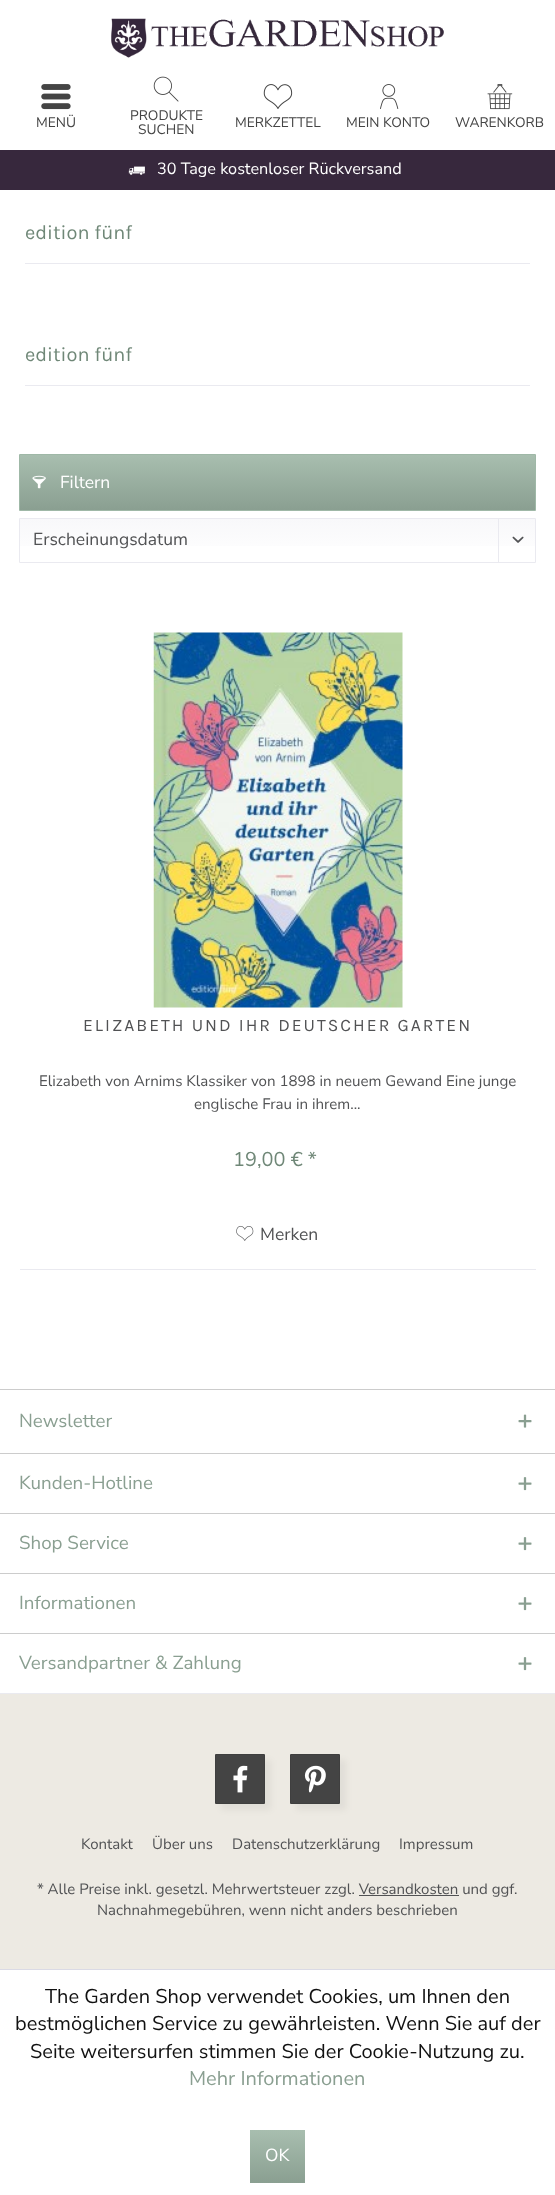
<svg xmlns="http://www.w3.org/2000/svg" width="555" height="2195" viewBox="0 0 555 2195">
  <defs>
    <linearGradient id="g1" gradientUnits="userSpaceOnUse" x1="278" y1="455" x2="278" y2="510"><stop offset="0" stop-color="#a8beaf"/><stop offset="1" stop-color="#8a9f91"/></linearGradient>
    <linearGradient id="g2" gradientUnits="userSpaceOnUse" x1="278" y1="519" x2="278" y2="561"><stop offset="0" stop-color="#f8f8fa"/><stop offset="1" stop-color="#fff"/></linearGradient>
    <linearGradient id="g3" gradientUnits="userSpaceOnUse" x1="278" y1="2130" x2="278" y2="2183"><stop offset="0" stop-color="#a8beaf"/><stop offset="1" stop-color="#8a9f91"/></linearGradient>
  </defs>
  <rect width="100%" height="100%" fill="#fff"/>
  <image x="111" y="18" width="333" height="40" href="img/1.png"/>
  <image x="41" y="84" width="30" height="26" href="img/2.png"/>
  <image x="153" y="76" width="26" height="26" href="img/3.png"/>
  <image x="263" y="84" width="30" height="25" href="img/4.png"/>
  <image x="380" y="84" width="19" height="25" href="img/5.png"/>
  <image x="487" y="84" width="26" height="26" href="img/6.png"/>
  <path d="M0 150h555v40H0z" fill="#37283d"/>
  <image x="128" y="166" width="17" height="9" href="img/7.png"/>
  <path d="M25 263h505v1H25z" fill="#eaeaf0"/>
  <path d="M25 385h505v1H25z" fill="#eaeaf0"/>
  <path d="M20 455h515v55H20z" fill="url(#g1)"/>
  <path d="M19.5 454.5h516v56H19.5z" fill="none" stroke="#9fb8a7"/>
  <image x="32" y="475" width="14" height="14" href="img/8.png"/>
  <path d="M20 519h515v27H20z" fill="url(#g2)"/>
  <path d="M19.5 518.5h516v44H19.5z" fill="none" stroke="#eaeaf0"/>
  <path d="M498 519h1v44H498z" fill="#eaeaf0"/>
  <image x="512" y="536" width="12" height="7" href="img/9.png"/>
  <path d="M19 1269h517v1H19z" fill="#eaeaf0"/>
  <path d="M19 1269h1v1H19z" fill="#fff"/>
  <image x="153" y="632" width="250" height="376" href="img/10.png"/>
  <image x="236" y="1225" width="18" height="16" href="img/11.png"/>
  <path d="M0 1389h555v1H0z" fill="#ccc"/>
  <image x="518" y="1414" width="14" height="14" href="img/12.png"/>
  <path d="M0 1453h555v1H0z" fill="#ccc"/>
  <image x="518" y="1477" width="14" height="14" href="img/13.png"/>
  <path d="M0 1513h555v1H0z" fill="#ccc"/>
  <image x="518" y="1537" width="14" height="14" href="img/13.png"/>
  <path d="M0 1573h555v1H0z" fill="#ccc"/>
  <image x="518" y="1597" width="14" height="14" href="img/13.png"/>
  <path d="M0 1633h555v1H0z" fill="#ccc"/>
  <image x="518" y="1657" width="14" height="14" href="img/13.png"/>
  <path d="M0 1694h555v275H0z" fill="#edeae3"/>
  <path d="M0 1693h555v1H0z" fill="#eaeaf0"/>
  <path d="M221 1760h50v50H221z" fill="#0000000d" filter="blur(3px)"/>
  <path d="M216 1755h48v48H216z" fill="#444"/>
  <image x="233" y="1765" width="15" height="28" href="img/14.png"/>
  <path d="M215.5 1754.5h49v49H215.5z" fill="none" stroke="#3f3f3f"/>
  <path d="M296 1760h50v50H296z" fill="#0000000d" filter="blur(3px)"/>
  <path d="M291 1755h48v48H291z" fill="#444"/>
  <image x="304" y="1765" width="22" height="28" href="img/15.png"/>
  <path d="M290.5 1754.5h49v49H290.5z" fill="none" stroke="#3f3f3f"/>
  <path d="M359 1895h100v1H359z" fill="#515254"/>
  <path d="M0 1969h555v1H0z" fill="#dadae5"/>
  <path d="M250 2130h55v53H250z" fill="url(#g3)"/>
  <g font-family="Nunito Sans" font-size="13.75" fill="#444">
    <text x="36" y="127">MENÜ</text>
    <text x="130" y="120">PRODUKTE</text>
    <text x="138" y="134">SUCHEN</text>
    <text x="235" y="127">MERKZETTEL</text>
    <text x="346" y="127">MEIN KONTO</text>
    <text x="455" y="127">WARENKORB</text>
  </g>
  <text x="157" y="174" font-family="Nunito Sans" font-size="16.25" fill="#fff">30 Tage kostenloser Rückversand</text>
  <g font-family="Karla" font-size="20" fill="#6f8777">
    <text x="25" y="239">edition fünf</text>
    <text x="25" y="361">edition fünf</text>
  </g>
  <text x="60" y="488" font-family="Nunito Sans" font-size="17.5" fill="#fff">Filtern</text>
  <text x="33" y="545" font-family="Nunito Sans" font-size="17.5" fill="#515254">Erscheinungsdatum</text>
  <text x="83" y="1031" font-family="Karla" font-size="17.5" letter-spacing="2" fill="#515254">ELIZABETH UND IHR DEUTSCHER GARTEN</text>
  <g font-family="Nunito Sans" font-size="15.1" fill="#515254">
    <text x="39" y="1086">Elizabeth von Arnims Klassiker von 1898 in neuem Gewand Eine junge</text>
    <text x="194" y="1109">englische Frau in ihrem...</text>
  </g>
  <text x="233" y="1166" font-family="Nunito Sans" font-size="20" fill="#6f8777">19,00 € *</text>
  <text x="260" y="1240" font-family="Nunito Sans" font-size="17.5" fill="#515254">Merken</text>
  <g font-family="Nunito Sans" font-size="18.75" fill="#8a9f91">
    <text x="19" y="1427">Newsletter</text>
    <text x="19" y="1489">Kunden-Hotline</text>
    <text x="19" y="1549">Shop Service</text>
    <text x="19" y="1609">Informationen</text>
    <text x="19" y="1669">Versandpartner &amp; Zahlung</text>
  </g>
  <g font-family="Nunito Sans" font-size="15" fill="#515254">
    <text x="81" y="1849">Kontakt</text>
    <text x="152" y="1849">Über uns</text>
    <text x="232" y="1849">Datenschutzerklärung</text>
    <text x="399" y="1849">Impressum</text>
    <text x="37" y="1894">* Alle Preise inkl. gesetzl. Mehrwertsteuer zzgl. Versandkosten und ggf.</text>
    <text x="97" y="1915">Nachnahmegebühren, wenn nicht anders beschrieben</text>
  </g>
  <g font-family="Nunito Sans" font-size="20" fill="#111">
    <text x="45" y="2003">The Garden Shop verwendet Cookies, um Ihnen den</text>
    <text x="15" y="2030">bestmöglichen Service zu gewährleisten. Wenn Sie auf der</text>
    <text x="30" y="2058">Seite weitersurfen stimmen Sie der Cookie-Nutzung zu.</text>
  </g>
  <text x="189" y="2085" font-family="Nunito Sans" font-size="20" fill="#8a9f91">Mehr Informationen</text>
  <text x="265" y="2161" font-family="Nunito Sans" font-size="17.5" fill="#fff">OK</text>
</svg>
